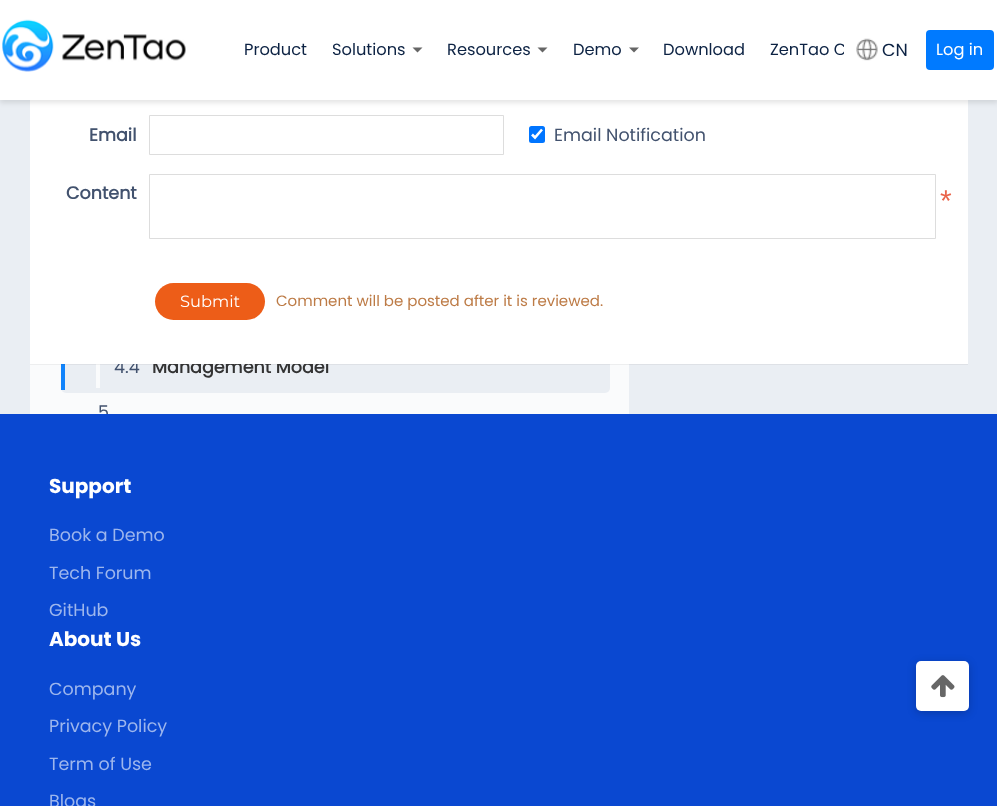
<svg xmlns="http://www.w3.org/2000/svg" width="997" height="806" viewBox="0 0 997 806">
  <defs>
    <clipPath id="clip1"><path d="M231 0h613v100H231z"/></clipPath>
  </defs>
  <rect width="100%" height="100%" fill="#eaeef3"/>
  <path d="M30 364h599v50H30z" fill="#fafbfc"/>
  <rect x="61" y="190" width="549" height="203" rx="5" fill="#eaeef3"/>
  <path d="M61 364h4v26H61z" fill="#1183fb"/>
  <path d="M96 364h4v24H96z" fill="#fafbfc"/>
  <path d="M30 -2h938v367H30z" fill="#0000000d" filter="blur(0.5px)"/>
  <text x="114" y="373" font-family="Poppins" font-size="17.5" fill="#42526e">4.4</text>
  <text x="152" y="373" font-family="Poppins" font-size="17.5" font-weight="bold" fill="#333">Management Model</text>
  <path d="M30 100h938v264H30z" fill="#fff"/>
  <path d="M0 3h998v100H0z" fill="#0000001a" filter="blur(2.5px)"/>
  <path d="M0 0h997v100H0z" fill="#fff"/>
  <g clip-path="url(#clip1)">
    <text x="770" y="55" font-family="Poppins" font-size="16.25" fill="#0c2243">ZenTao C</text>
  </g>
  <text x="663" y="55" font-family="Poppins" font-size="16.25" fill="#0c2243">Download</text>
  <path d="M629 47.5H639L634 52.5Z" fill="#666"/>
  <text x="573" y="55" font-family="Poppins" font-size="16.25" fill="#0c2243">Demo</text>
  <path d="M537.5 47.5H547.5L542.5 52.5Z" fill="#666"/>
  <text x="447" y="55" font-family="Poppins" font-size="16.25" fill="#0c2243">Resources</text>
  <path d="M412.5 47.5H422.5L417.5 52.5Z" fill="#666"/>
  <g font-family="Poppins" font-size="16.25" fill="#0c2243">
    <text x="332" y="55">Solutions</text>
    <text x="244" y="55">Product</text>
  </g>
  <text x="882" y="56" font-family="Poppins" font-size="17.5" fill="#0c2243">CN</text>
  <image x="856" y="38" width="22" height="23" href="img/2.png"/>
  <image x="2" y="19" width="184" height="53" href="img/1.png"/>
  <rect x="926" y="30" width="68" height="40" rx="4" fill="#007aff"/>
  <text x="936" y="55" font-family="Poppins" font-size="16.25" fill="#fff">Log in</text>
  <rect x="155" y="283" width="110" height="37" rx="18.5" fill="#ed5d18"/>
  <text x="180" y="307" font-family="Montserrat" font-size="16.25" fill="#fff">Submit</text>
  <text x="276" y="306" font-family="Poppins" font-size="15" fill="#bd7b46">Comment will be posted after it is reviewed.</text>
  <text x="940" y="211" font-family="Liberation Sans" font-size="30" fill="#ea644a">*</text>
  <path d="M149.5 174.5h786v64H149.5z" fill="none" stroke="#ddd"/>
  <text x="66" y="199" font-family="Poppins" font-size="17.5" font-weight="bold" fill="#42526e">Content</text>
  <rect x="529" y="126" width="16" height="17" rx="2.5" fill="#0075ff"/>
  <path d="M532 134.5L535 137.5L542 129.5" fill="none" stroke="#fff" stroke-width="2.6"/>
  <text x="554" y="141" font-family="Poppins" font-size="17.5" fill="#42526e">Email Notification</text>
  <path d="M149.5 115.5h354v39H149.5z" fill="none" stroke="#ddd"/>
  <text x="89" y="141" font-family="Poppins" font-size="17.5" font-weight="bold" fill="#42526e">Email</text>
  <text x="98" y="418" font-family="Poppins" font-size="17.5" fill="#42526e">5</text>
  <path d="M0 414h997v392H0z" fill="#0a48d1"/>
  <text x="49" y="493" font-family="'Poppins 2'" font-size="20" font-weight="bold" fill="#fff">Support</text>
  <g font-family="Poppins" font-size="17.5" fill="#9db6ed">
    <text x="49" y="541">Book a Demo</text>
    <text x="49" y="579">Tech Forum</text>
    <text x="49" y="616">GitHub</text>
  </g>
  <text x="49" y="646" font-family="'Poppins 2'" font-size="20" font-weight="bold" fill="#fff">About Us</text>
  <g font-family="Poppins" font-size="17.5" fill="#9db6ed">
    <text x="49" y="695">Company</text>
    <text x="49" y="732">Privacy Policy</text>
    <text x="49" y="770">Term of Use</text>
    <text x="49" y="807">Blogs</text>
  </g>
  <rect x="916" y="663" width="53" height="50" rx="5" fill="#00000033" filter="blur(4px)"/>
  <rect x="916" y="661" width="53" height="50" rx="5" fill="#fff"/>
  <image x="931" y="675" width="24" height="23" href="img/3.png"/>
</svg>
